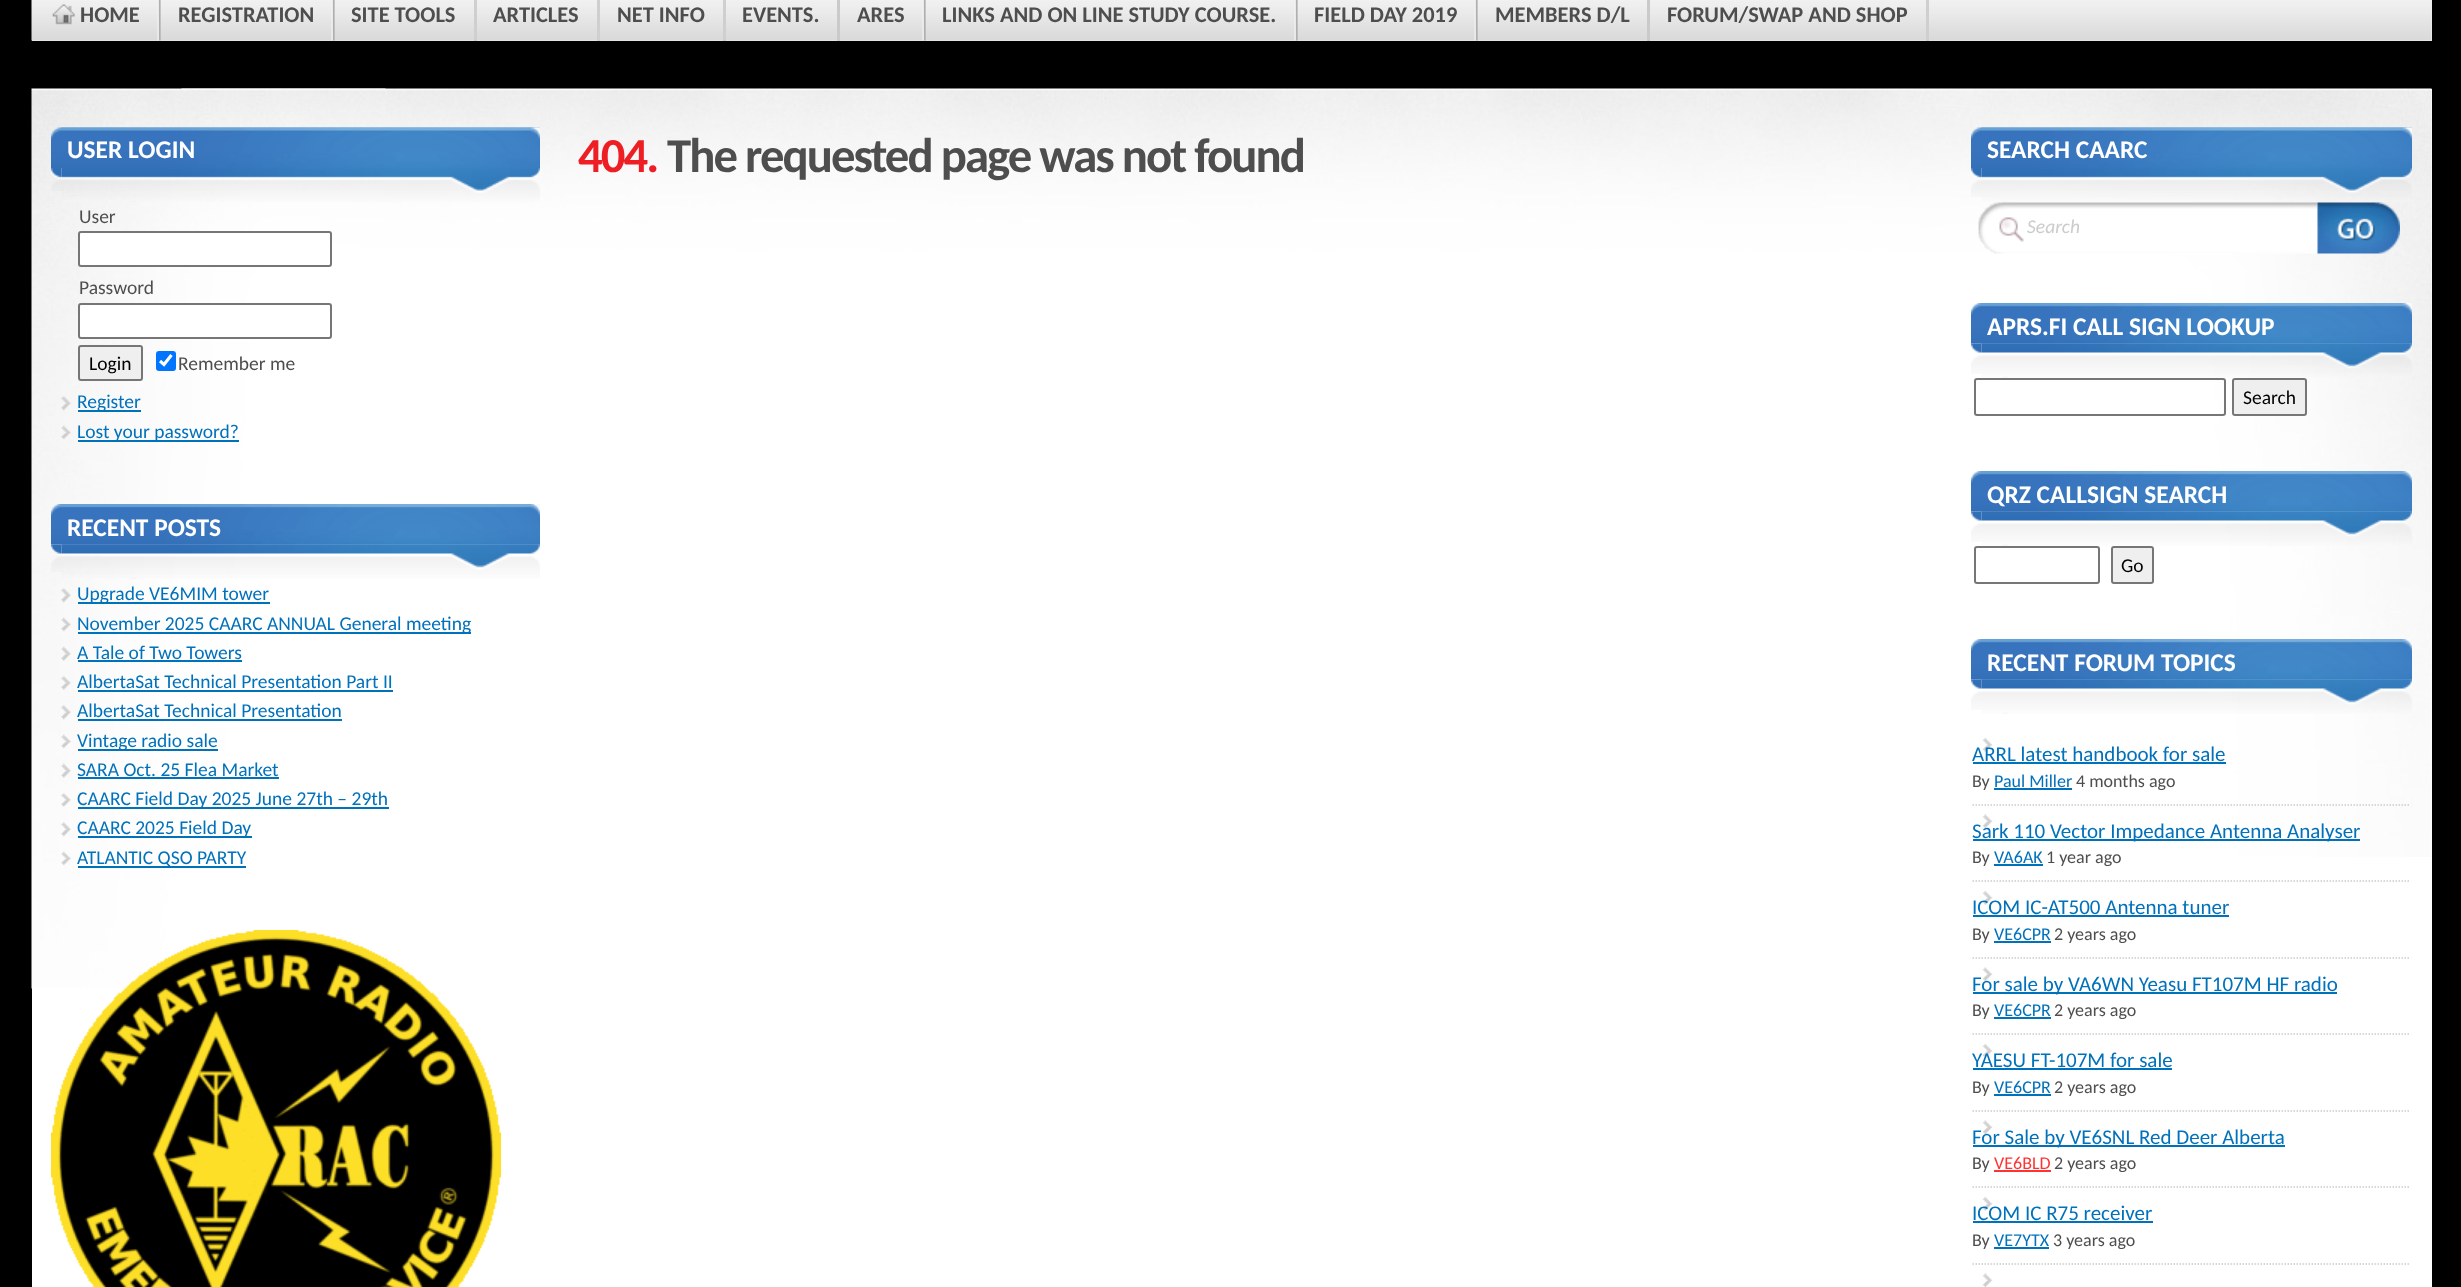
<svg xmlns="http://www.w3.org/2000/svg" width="2461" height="1287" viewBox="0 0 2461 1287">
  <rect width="100%" height="100%" fill="#000"/>
  <path d="M32 0h2400v41H32z" fill="#eee"/>
  <image x="31" y="0" width="2401" height="41" href="img/1.png"/>
  <image x="157" y="0" width="4" height="41" href="img/2.png"/>
  <image x="52" y="4" width="23" height="21" href="img/3.png"/>
  <image x="331" y="0" width="4" height="41" href="img/2.png"/>
  <path d="M474 0h3v41H474z" fill="#cfcfcf"/>
  <path d="M597 0h3v41H597z" fill="#cfcfcf"/>
  <path d="M723 0h3v41H723z" fill="#cfcfcf"/>
  <path d="M837 0h3v41H837z" fill="#cacaca"/>
  <image x="922" y="0" width="4" height="41" href="img/2.png"/>
  <image x="1294" y="0" width="4" height="41" href="img/2.png"/>
  <image x="1474" y="0" width="4" height="41" href="img/2.png"/>
  <path d="M1647 0h3v41H1647z" fill="#cacaca"/>
  <path d="M1926 0h3v41H1926z" fill="#cfcfcf"/>
  <path d="M32 89h2400v1198H32z" fill="#fff"/>
  <image x="181" y="88" width="2251" height="769" href="img/4.png"/>
  <image x="31" y="88" width="355" height="901" href="img/5.png"/>
  <image x="51" y="127" width="489" height="41" href="img/6.png"/>
  <image x="61" y="127" width="479" height="41" href="img/7.png"/>
  <image x="61" y="168" width="479" height="34" href="img/9.png"/>
  <image x="51" y="168" width="11" height="23" href="img/8.png"/>
  <rect x="79" y="232" width="252" height="34" rx="2" fill="#fff" stroke="#767676" stroke-width="2"/>
  <rect x="79" y="304" width="252" height="34" rx="2" fill="#fff" stroke="#767676" stroke-width="2"/>
  <rect x="79" y="346" width="63" height="34" rx="2" fill="#efefef" stroke="#767676" stroke-width="2"/>
  <rect x="156" y="351" width="20" height="20" rx="3" fill="#0075ff"/>
  <path d="M160 361L164 364.5L171.5 355" fill="none" stroke="#fff" stroke-width="3.1"/>
  <image x="61" y="396" width="10" height="15" href="img/10.png"/>
  <path d="M78 410h63v2H78z" fill="#0071bb"/>
  <image x="61" y="425" width="10" height="15" href="img/11.png"/>
  <path d="M78 440h161v2H78z" fill="#0071bb"/>
  <image x="51" y="504" width="489" height="41" href="img/12.png"/>
  <image x="61" y="504" width="479" height="41" href="img/13.png"/>
  <image x="61" y="544" width="479" height="35" href="img/15.png"/>
  <image x="51" y="544" width="11" height="28" href="img/14.png"/>
  <image x="61" y="588" width="10" height="15" href="img/16.png"/>
  <path d="M78 602h192v2H78z" fill="#0071bb"/>
  <image x="61" y="617" width="10" height="15" href="img/17.png"/>
  <path d="M78 632h393v2H78z" fill="#0071bb"/>
  <image x="61" y="646" width="10" height="15" href="img/18.png"/>
  <path d="M78 660h164v2H78z" fill="#0071bb"/>
  <image x="61" y="676" width="10" height="14" href="img/19.png"/>
  <path d="M78 690h315v2H78z" fill="#0071bb"/>
  <image x="61" y="705" width="10" height="15" href="img/20.png"/>
  <path d="M78 719h264v2H78z" fill="#0071bb"/>
  <image x="61" y="734" width="10" height="15" href="img/21.png"/>
  <path d="M78 749h140v2H78z" fill="#0071bb"/>
  <image x="61" y="763" width="10" height="15" href="img/22.png"/>
  <path d="M78 777h201v2H78z" fill="#0071bb"/>
  <image x="61" y="793" width="10" height="14" href="img/23.png"/>
  <path d="M78 807h311v2H78z" fill="#0071bb"/>
  <image x="61" y="822" width="10" height="15" href="img/24.png"/>
  <path d="M78 836h174v2H78z" fill="#0071bb"/>
  <image x="61" y="851" width="10" height="15" href="img/25.png"/>
  <path d="M78 866h168v2H78z" fill="#0071bb"/>
  <image x="51" y="930" width="450" height="357" href="img/26.png"/>
  <image x="1971" y="127" width="441" height="41" href="img/27.png"/>
  <image x="1981" y="127" width="431" height="41" href="img/28.png"/>
  <image x="1981" y="168" width="431" height="34" href="img/30.png"/>
  <image x="1971" y="168" width="11" height="29" href="img/29.png"/>
  <image x="1978" y="202" width="340" height="52" href="img/31.png"/>
  <image x="2317" y="202" width="83" height="52" href="img/32.png"/>
  <image x="1971" y="303" width="441" height="41" href="img/33.png"/>
  <image x="1981" y="303" width="431" height="41" href="img/34.png"/>
  <image x="1981" y="343" width="431" height="35" href="img/36.png"/>
  <image x="1971" y="343" width="11" height="31" href="img/35.png"/>
  <rect x="1975" y="379" width="250" height="36" rx="2" fill="none" stroke="#767676" stroke-width="2"/>
  <rect x="2233" y="379" width="73" height="36" rx="2" fill="#efefef" stroke="#767676" stroke-width="2"/>
  <image x="1971" y="471" width="441" height="41" href="img/37.png"/>
  <image x="1981" y="471" width="431" height="41" href="img/38.png"/>
  <image x="1981" y="511" width="431" height="35" href="img/39.png"/>
  <image x="1971" y="511" width="11" height="31" href="img/35.png"/>
  <rect x="1975" y="547" width="124" height="36" rx="2" fill="none" stroke="#767676" stroke-width="2"/>
  <rect x="2112" y="547" width="41" height="36" rx="2" fill="#efefef" stroke="#767676" stroke-width="2"/>
  <image x="1971" y="639" width="441" height="41" href="img/40.png"/>
  <image x="1981" y="639" width="431" height="41" href="img/41.png"/>
  <image x="1981" y="679" width="431" height="35" href="img/42.png"/>
  <image x="1971" y="679" width="11" height="31" href="img/35.png"/>
  <image x="1982" y="737" width="11" height="15" href="img/43.png"/>
  <path d="M1972.5 805H2410.5" fill="none" stroke="#ccc" stroke-width="1.5" stroke-dasharray="1.5 1.5"/>
  <path d="M1973 762h253v2H1973z" fill="#0071bb"/>
  <path d="M1994 788h78v2H1994z" fill="#0071bb"/>
  <image x="1982" y="814" width="11" height="15" href="img/44.png"/>
  <path d="M1972.5 881H2410.5" fill="none" stroke="#ccc" stroke-width="1.5" stroke-dasharray="1.5 1.5"/>
  <path d="M1973 839h387v2H1973z" fill="#0071bb"/>
  <path d="M1994 864h49v2H1994z" fill="#0071bb"/>
  <image x="1982" y="890" width="11" height="15" href="img/43.png"/>
  <path d="M1972.5 958H2410.5" fill="none" stroke="#ccc" stroke-width="1.5" stroke-dasharray="1.5 1.5"/>
  <path d="M1973 915h256v2H1973z" fill="#0071bb"/>
  <path d="M1994 941h57v2H1994z" fill="#0071bb"/>
  <image x="1982" y="967" width="11" height="15" href="img/44.png"/>
  <path d="M1972.5 1034H2410.5" fill="none" stroke="#ccc" stroke-width="1.5" stroke-dasharray="1.5 1.5"/>
  <path d="M1973 992h364v2H1973z" fill="#0071bb"/>
  <path d="M1994 1017h57v2H1994z" fill="#0071bb"/>
  <image x="1982" y="1043" width="11" height="15" href="img/43.png"/>
  <path d="M1972.5 1111H2410.5" fill="none" stroke="#ccc" stroke-width="1.5" stroke-dasharray="1.5 1.5"/>
  <path d="M1973 1068h199v2H1973z" fill="#0071bb"/>
  <path d="M1994 1094h57v2H1994z" fill="#0071bb"/>
  <image x="1982" y="1120" width="11" height="15" href="img/44.png"/>
  <path d="M1972.5 1187H2410.5" fill="none" stroke="#ccc" stroke-width="1.5" stroke-dasharray="1.5 1.5"/>
  <path d="M1973 1145h312v2H1973z" fill="#0071bb"/>
  <path d="M1994 1170h57v2H1994z" fill="#f33"/>
  <image x="1982" y="1196" width="11" height="15" href="img/43.png"/>
  <path d="M1972.5 1264H2410.5" fill="none" stroke="#ccc" stroke-width="1.5" stroke-dasharray="1.5 1.5"/>
  <path d="M1973 1221h180v2H1973z" fill="#0071bb"/>
  <path d="M1994 1247h55v2H1994z" fill="#0071bb"/>
  <image x="1982" y="1273" width="11" height="14" href="img/45.png"/>
  <g font-family="Carlito" font-size="22.4" font-weight="bold" fill="#4e4e4e">
    <text x="80" y="22">HOME</text>
    <text x="178" y="22">REGISTRATION</text>
    <text x="351" y="22">SITE TOOLS</text>
    <text x="493" y="22">ARTICLES</text>
    <text x="617" y="22">NET INFO</text>
    <text x="742" y="22">EVENTS.</text>
    <text x="857" y="22">ARES</text>
    <text x="942" y="22">LINKS AND ON LINE STUDY COURSE.</text>
    <text x="1314" y="22">FIELD DAY 2019</text>
    <text x="1495" y="22">MEMBERS D/L</text>
    <text x="1667" y="22">FORUM/SWAP AND SHOP</text>
  </g>
  <text x="67" y="158" font-family="Carlito" font-size="25.4" font-weight="bold" fill="#fff">USER LOGIN</text>
  <g font-family="Carlito" font-size="19.5" fill="#4e4e4e">
    <text x="79" y="223">User</text>
    <text x="79" y="294">Password</text>
  </g>
  <text x="89" y="370" font-family="Carlito" font-size="19.5" fill="#000">Login</text>
  <text x="178" y="370" font-family="Carlito" font-size="19.5" fill="#4e4e4e">Remember me</text>
  <g font-family="Carlito" font-size="19.5" fill="#0071bb">
    <text x="77" y="408">Register</text>
    <text x="77" y="438">Lost your password?</text>
  </g>
  <text x="67" y="536" font-family="Carlito" font-size="25.4" font-weight="bold" fill="#fff">RECENT POSTS</text>
  <g font-family="Carlito" font-size="19.5" fill="#0071bb">
    <text x="77" y="600">Upgrade VE6MIM tower</text>
    <text x="77" y="630">November 2025 CAARC ANNUAL General meeting</text>
    <text x="77" y="659">A Tale of Two Towers</text>
    <text x="77" y="688">AlbertaSat Technical Presentation Part II</text>
    <text x="77" y="717">AlbertaSat Technical Presentation</text>
    <text x="77" y="747">Vintage radio sale</text>
    <text x="77" y="776">SARA Oct. 25 Flea Market</text>
    <text x="77" y="805">CAARC Field Day 2025 June 27th – 29th</text>
    <text x="77" y="834">CAARC 2025 Field Day</text>
    <text x="77" y="864">ATLANTIC QSO PARTY</text>
  </g>
  <text x="578" y="172" font-family="Carlito" font-size="48.75" font-weight="bold" letter-spacing="-1.95" fill="#ed1e24">404.</text>
  <text x="667" y="172" font-family="Carlito" font-size="48.75" font-weight="bold" letter-spacing="-1.95" fill="#4e4e4e">The requested page was not found</text>
  <text x="1987" y="158" font-family="Carlito" font-size="25.4" font-weight="bold" fill="#fff">SEARCH CAARC</text>
  <text x="2027" y="233" font-family="Carlito" font-size="19.5" font-style="italic" fill="#ccc">Search</text>
  <text x="1987" y="335" font-family="Carlito" font-size="25.4" font-weight="bold" fill="#fff">APRS.FI CALL SIGN LOOKUP</text>
  <text x="2243" y="404" font-family="Carlito" font-size="19.5" fill="#000">Search</text>
  <text x="1987" y="503" font-family="Carlito" font-size="25.4" font-weight="bold" fill="#fff">QRZ CALLSIGN SEARCH</text>
  <text x="2121" y="572" font-family="Carlito" font-size="19.5" fill="#000">Go</text>
  <text x="1987" y="671" font-family="Carlito" font-size="25.4" font-weight="bold" fill="#fff">RECENT FORUM TOPICS</text>
  <text x="1972" y="761" font-family="Carlito" font-size="21" fill="#0071bb">ARRL latest handbook for sale</text>
  <text x="1972" y="787" font-family="Carlito" font-size="18" fill="#4e4e4e">By</text>
  <text x="1994" y="787" font-family="Carlito" font-size="18" fill="#0071bb">Paul Miller</text>
  <text x="2076" y="787" font-family="Carlito" font-size="18" fill="#4e4e4e">4 months ago</text>
  <text x="1972" y="838" font-family="Carlito" font-size="21" fill="#0071bb">Sark 110 Vector Impedance Antenna Analyser</text>
  <text x="1972" y="863" font-family="Carlito" font-size="18" fill="#4e4e4e">By</text>
  <text x="1994" y="863" font-family="Carlito" font-size="18" fill="#0071bb">VA6AK</text>
  <text x="2046" y="863" font-family="Carlito" font-size="18" fill="#4e4e4e">1 year ago</text>
  <text x="1972" y="914" font-family="Carlito" font-size="21" fill="#0071bb">ICOM IC-AT500 Antenna tuner</text>
  <text x="1972" y="940" font-family="Carlito" font-size="18" fill="#4e4e4e">By</text>
  <text x="1994" y="940" font-family="Carlito" font-size="18" fill="#0071bb">VE6CPR</text>
  <text x="2054" y="940" font-family="Carlito" font-size="18" fill="#4e4e4e">2 years ago</text>
  <text x="1972" y="991" font-family="Carlito" font-size="21" fill="#0071bb">For sale by VA6WN Yeasu FT107M HF radio</text>
  <text x="1972" y="1016" font-family="Carlito" font-size="18" fill="#4e4e4e">By</text>
  <text x="1994" y="1016" font-family="Carlito" font-size="18" fill="#0071bb">VE6CPR</text>
  <text x="2054" y="1016" font-family="Carlito" font-size="18" fill="#4e4e4e">2 years ago</text>
  <text x="1972" y="1067" font-family="Carlito" font-size="21" fill="#0071bb">YAESU FT-107M for sale</text>
  <text x="1972" y="1093" font-family="Carlito" font-size="18" fill="#4e4e4e">By</text>
  <text x="1994" y="1093" font-family="Carlito" font-size="18" fill="#0071bb">VE6CPR</text>
  <text x="2054" y="1093" font-family="Carlito" font-size="18" fill="#4e4e4e">2 years ago</text>
  <text x="1972" y="1144" font-family="Carlito" font-size="21" fill="#0071bb">For Sale by VE6SNL Red Deer Alberta</text>
  <text x="1972" y="1169" font-family="Carlito" font-size="18" fill="#4e4e4e">By</text>
  <text x="1994" y="1169" font-family="Carlito" font-size="18" fill="#f33">VE6BLD</text>
  <text x="2054" y="1169" font-family="Carlito" font-size="18" fill="#4e4e4e">2 years ago</text>
  <text x="1972" y="1220" font-family="Carlito" font-size="21" fill="#0071bb">ICOM IC R75 receiver</text>
  <text x="1972" y="1246" font-family="Carlito" font-size="18" fill="#4e4e4e">By</text>
  <text x="1994" y="1246" font-family="Carlito" font-size="18" fill="#0071bb">VE7YTX</text>
  <text x="2053" y="1246" font-family="Carlito" font-size="18" fill="#4e4e4e">3 years ago</text>
</svg>
